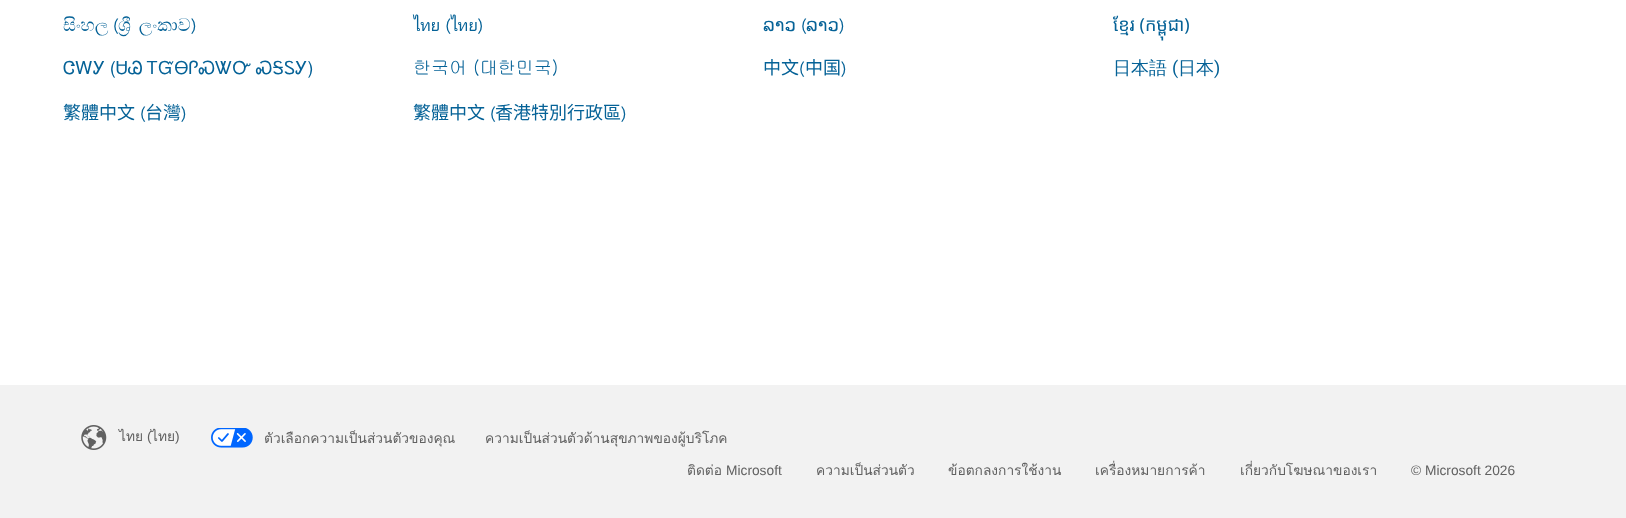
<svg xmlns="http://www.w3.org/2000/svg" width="1626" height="518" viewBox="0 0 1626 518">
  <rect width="100%" height="100%" fill="#fff"/>
  <path d="M0 385h1626v133H0z" fill="#f2f2f2"/>
  <image x="81" y="425" width="26" height="25" href="img/1.png"/>
  <image x="211" y="428" width="42" height="20" href="img/2.png"/>
  <text x="63" y="31" font-family="FreeSerif" font-size="18" fill="#056297">සිංහල</text>
  <text x="113" y="31" font-family="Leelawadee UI" font-size="18" fill="#056297">(</text>
  <text x="118" y="31" word-spacing="-1" font-family="FreeSerif" font-size="18" fill="#056297">ශ්‍රී ලංකාව</text>
  <g font-family="Leelawadee UI" font-size="18" fill="#056297">
    <text x="191" y="31">)</text>
    <text x="413" y="31">ไทย (ไทย)</text>
  </g>
  <text x="763" y="31" font-family="DejaVu Sans" font-size="18" fill="#056297">ລາວ</text>
  <text x="801" y="31" font-family="Leelawadee UI" font-size="18" fill="#056297">(</text>
  <text x="806" y="31" font-family="DejaVu Sans" font-size="18" fill="#056297">ລາວ</text>
  <text x="839" y="31" font-family="Leelawadee UI" font-size="18" fill="#056297">)</text>
  <text x="1113" y="31" font-family="Noto Sans Khmer" font-size="18" fill="#056297">ខ្មែរ (កម្ពុជា)</text>
  <text x="63" y="74" font-family="FreeSans" font-size="18" fill="#056297">ᏣᎳᎩ (ᏌᏊ ᎢᏳᎾᎵᏍᏔᏅ ᏍᎦᏚᎩ)</text>
  <text x="413" y="74" font-family="Gulim" font-size="18" fill="#056297">한국어 (대한민국)</text>
  <text x="763" y="74" font-family="Noto Sans CJK SC" font-size="18" fill="#056297">中文</text>
  <text x="799" y="74" font-family="Leelawadee UI" font-size="18" fill="#056297">(</text>
  <text x="805" y="74" font-family="Noto Sans CJK SC" font-size="18" fill="#056297">中国</text>
  <text x="841" y="74" font-family="Leelawadee UI" font-size="18" fill="#056297">)</text>
  <text x="1113" y="74" font-family="WenQuanYi Zen Hei" font-size="18" font-weight="500" fill="#056297">日本語</text>
  <text x="1172" y="74" font-family="Roboto" font-size="18" fill="#056297">(</text>
  <text x="1178" y="74" font-family="WenQuanYi Zen Hei" font-size="18" font-weight="500" fill="#056297">日本</text>
  <text x="1214" y="74" font-family="Roboto" font-size="18" fill="#056297">)</text>
  <text x="63" y="119" font-family="Noto Sans CJK TC" font-size="18" fill="#056297">繁體中文</text>
  <text x="140" y="119" font-family="Leelawadee UI" font-size="18" fill="#056297">(</text>
  <text x="145" y="119" font-family="Noto Sans CJK TC" font-size="18" fill="#056297">台灣</text>
  <text x="181" y="119" font-family="Leelawadee UI" font-size="18" fill="#056297">)</text>
  <text x="413" y="119" font-family="Noto Sans CJK TC" font-size="18" fill="#056297">繁體中文</text>
  <text x="490" y="119" font-family="Leelawadee UI" font-size="18" fill="#056297">(</text>
  <text x="495" y="119" font-family="Noto Sans CJK TC" font-size="18" fill="#056297">香港特別行政區</text>
  <text x="621" y="119" font-family="Leelawadee UI" font-size="18" fill="#056297">)</text>
  <text x="119" y="441" font-family="Loma" font-size="13.75" fill="#616161">ไทย</text>
  <text x="147" y="441" font-family="Liberation Sans" font-size="13.75" fill="#616161">(</text>
  <text x="151" y="441" font-family="Loma" font-size="13.75" fill="#616161">ไทย</text>
  <text x="175" y="441" font-family="Liberation Sans" font-size="13.75" fill="#616161">)</text>
  <g font-family="Loma" font-size="13.75" fill="#616161">
    <text x="264" y="443">ตัวเลือกความเป็นส่วนตัวของคุณ</text>
    <text x="485" y="443">ความเป็นส่วนตัวด้านสุขภาพของผู้บริโภค</text>
    <text x="687" y="475">ติดต่อ</text>
  </g>
  <text x="726" y="475" font-family="Liberation Sans" font-size="13.75" fill="#616161">Microsoft</text>
  <g font-family="Loma" font-size="13.75" fill="#616161">
    <text x="816" y="475">ความเป็นส่วนตัว</text>
    <text x="948" y="475">ข้อตกลงการใช้งาน</text>
    <text x="1095" y="475">เครื่องหมายการค้า</text>
    <text x="1240" y="475">เกี่ยวกับโฆษณาของเรา</text>
  </g>
  <text x="1411" y="475" font-family="Liberation Sans" font-size="13.75" fill="#616161">© Microsoft 2026</text>
</svg>
